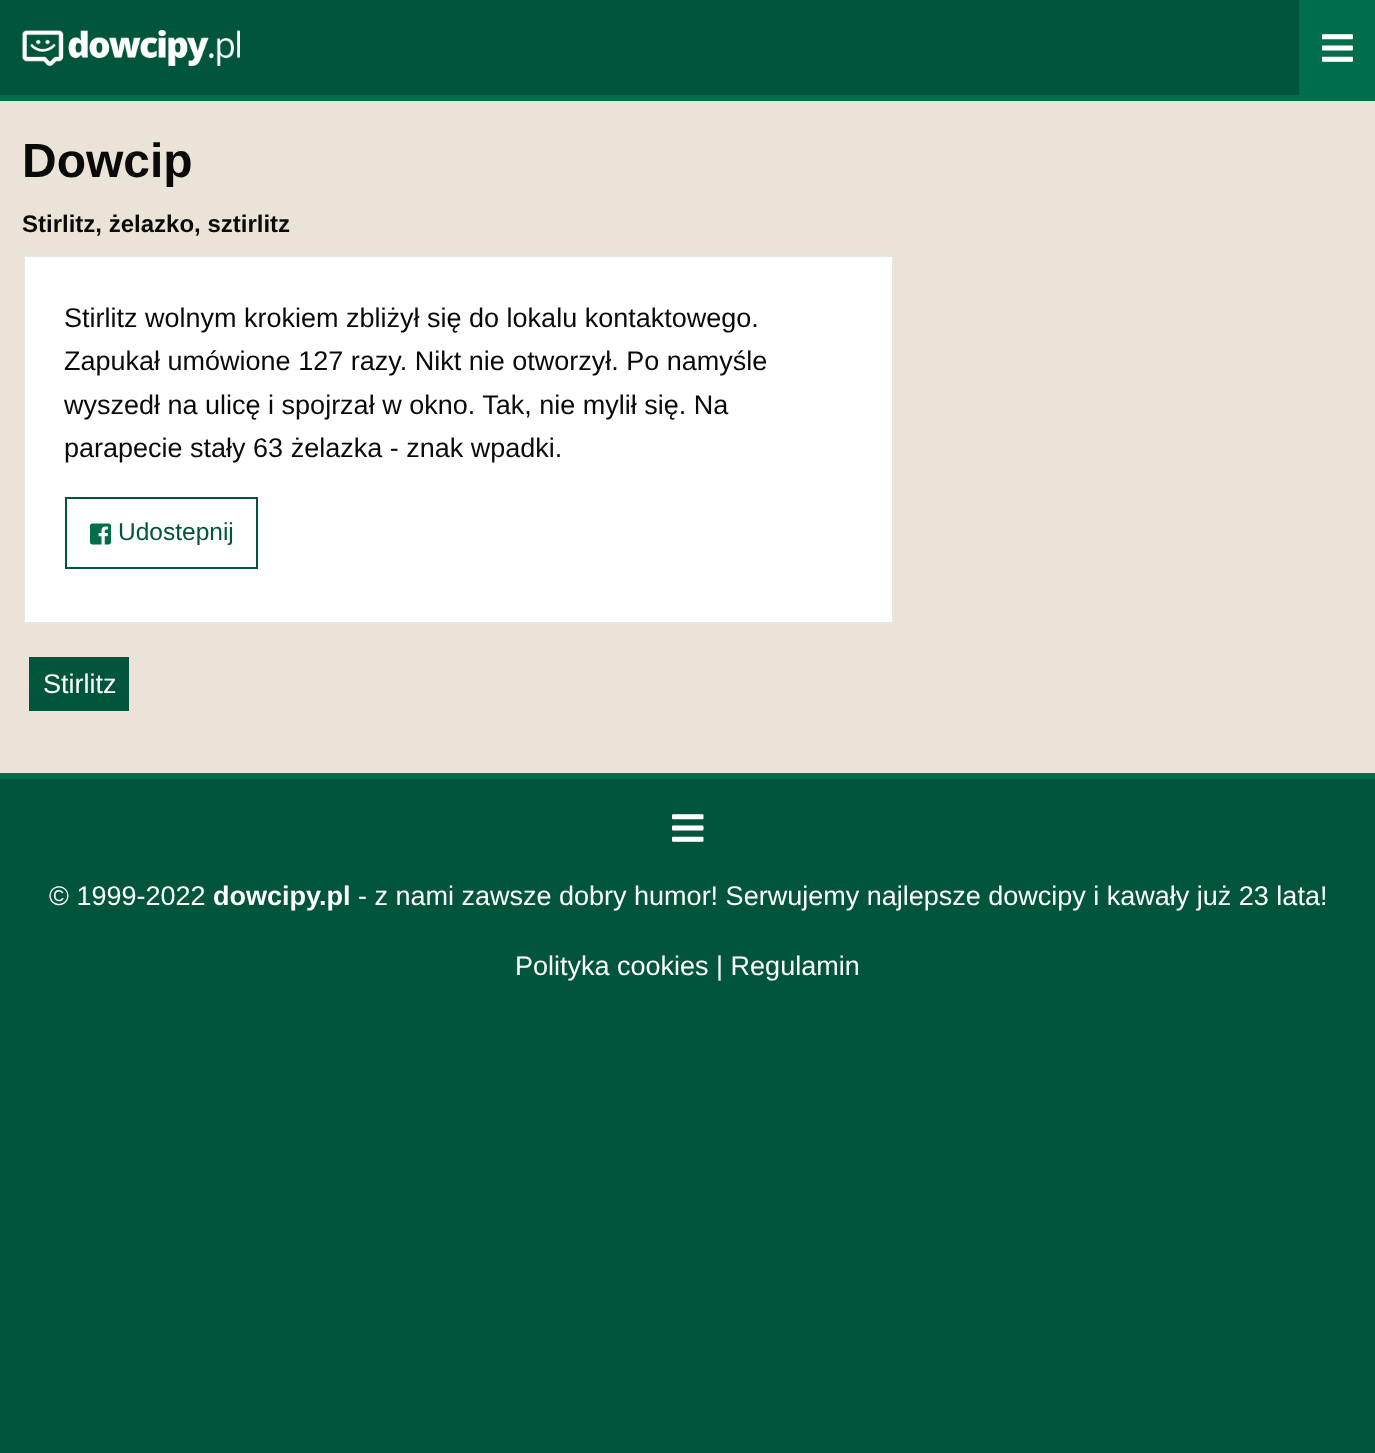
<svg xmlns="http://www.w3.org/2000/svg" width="1375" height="1453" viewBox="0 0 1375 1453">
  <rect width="100%" height="100%" fill="#00553b"/>
  <path d="M0 95h1375v6H0z" fill="#006e4a"/>
  <image x="22" y="30" width="218" height="36" href="img/1.png"/>
  <path d="M1299 0h76v95H1299z" fill="#006e4a"/>
  <image x="1322" y="34" width="31" height="28" href="img/2.png"/>
  <path d="M0 101h1375v672H0z" fill="#ebe3d7"/>
  <path d="M0 773h1375v6H0z" fill="#006e4a"/>
  <path d="M24 256h869v367H24z" fill="#fff" stroke="#e6e6e6" stroke-width="2"/>
  <path d="M66 498h191v70H66z" fill="none" stroke="#00553b" stroke-width="2"/>
  <image x="90" y="523" width="21" height="22" href="img/3.png"/>
  <path d="M29 657h100v54H29z" fill="#00553b"/>
  <image x="672" y="814" width="32" height="28" href="img/4.png"/>
  <text x="22" y="177" font-family="Liberation Sans" font-size="48" font-weight="bold" fill="#0a0a0a">Dowcip</text>
  <text x="22" y="232" font-family="Liberation Sans" font-size="24" font-weight="bold" fill="#0a0a0a">Stirlitz, żelazko, sztirlitz</text>
  <g font-family="Liberation Sans" font-size="27" fill="#0a0a0a">
    <text x="64" y="327">Stirlitz wolnym krokiem zbliżył się do lokalu kontaktowego.</text>
    <text x="64" y="370">Zapukał umówione 127 razy. Nikt nie otworzył. Po namyśle</text>
    <text x="64" y="414">wyszedł na ulicę i spojrzał w okno. Tak, nie mylił się. Na</text>
    <text x="64" y="457">parapecie stały 63 żelazka - znak wpadki.</text>
  </g>
  <text x="118" y="540" font-family="Liberation Sans" font-size="24.5" fill="#00553b">Udostepnij</text>
  <g font-family="Liberation Sans" font-size="27" fill="#fff">
    <text x="43" y="693">Stirlitz</text>
    <text x="49" y="905">© 1999-2022</text>
  </g>
  <text x="213" y="905" font-family="Liberation Sans" font-size="27" font-weight="bold" fill="#fff">dowcipy.pl</text>
  <g font-family="Liberation Sans" font-size="27" fill="#fff">
    <text x="358" y="905">- z nami zawsze dobry humor! Serwujemy najlepsze dowcipy i kawały już 23 lata!</text>
    <text x="515" y="975">Polityka cookies | Regulamin</text>
  </g>
</svg>
